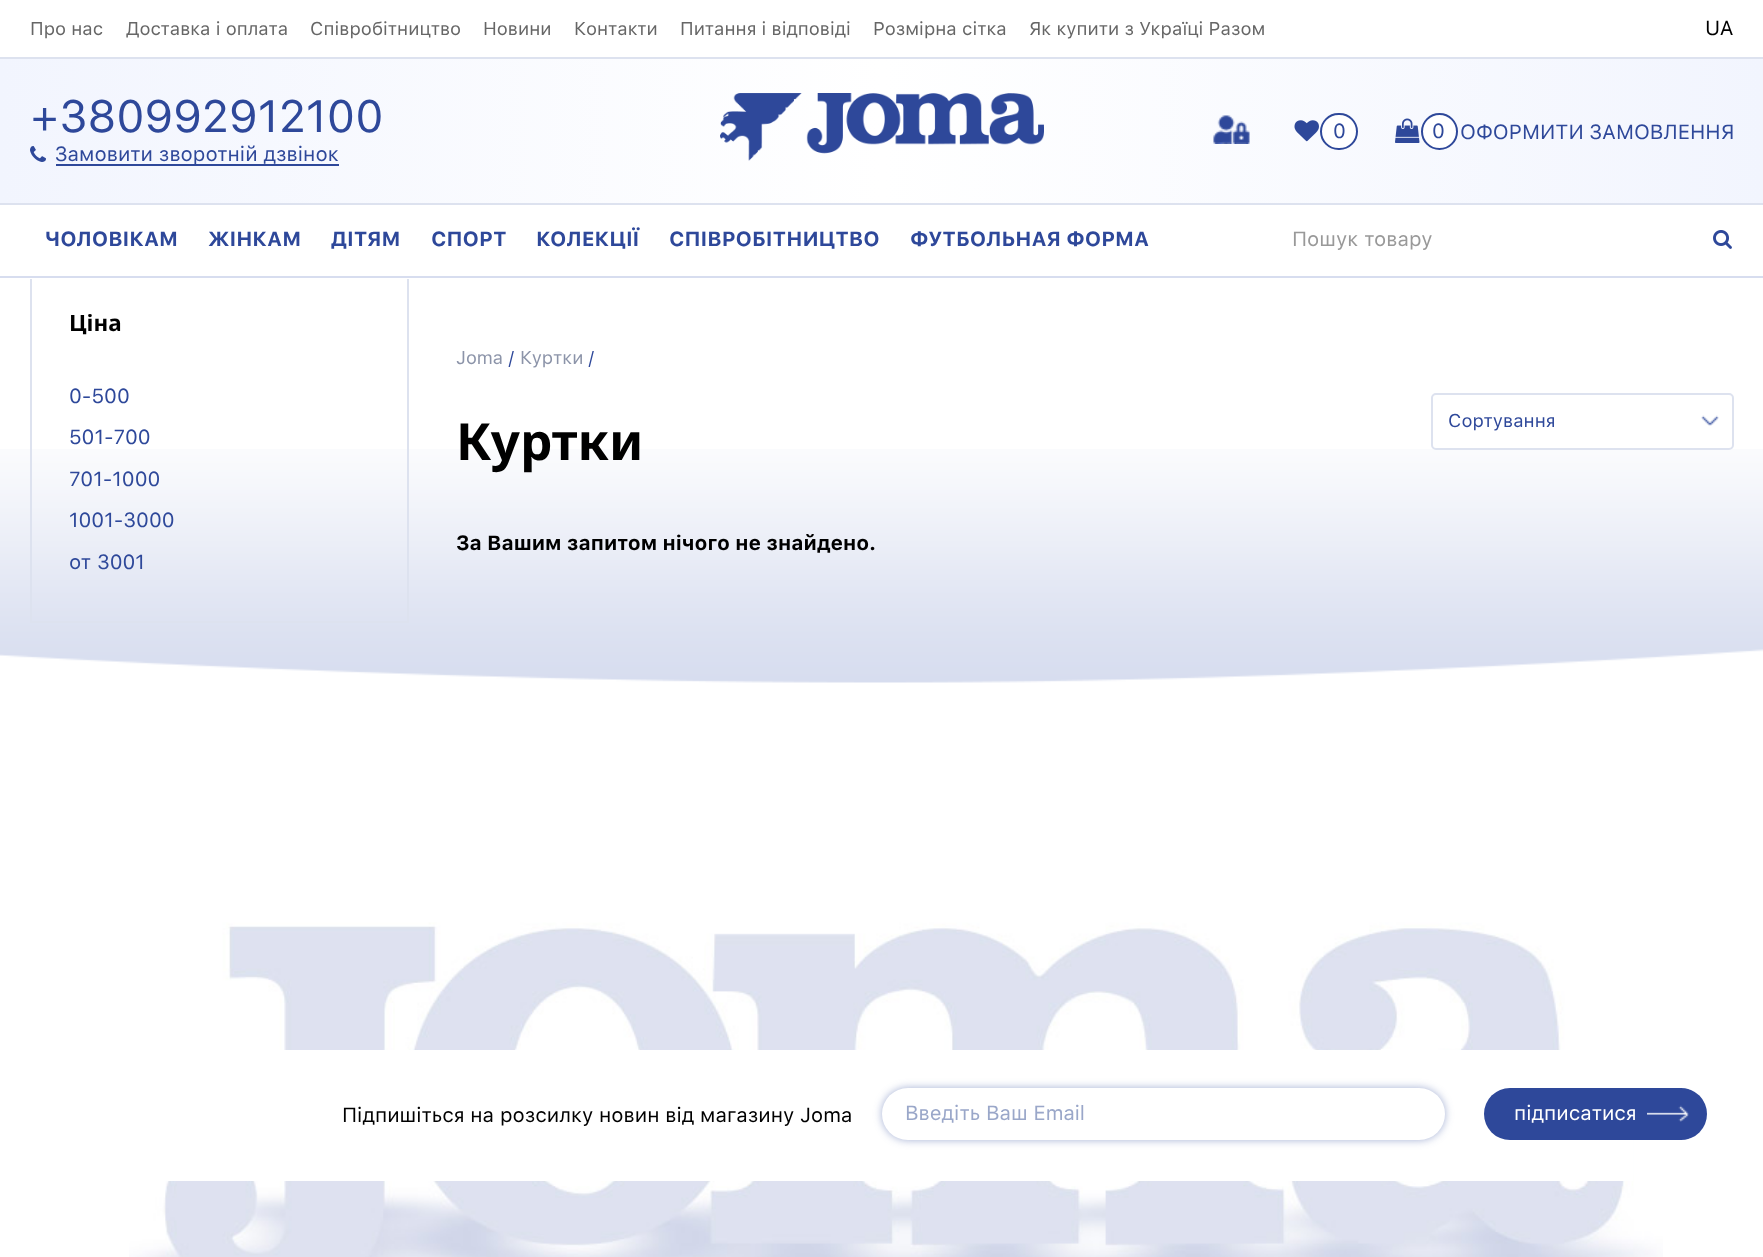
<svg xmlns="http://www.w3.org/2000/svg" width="1763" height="1257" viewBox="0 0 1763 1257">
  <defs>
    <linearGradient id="g1" gradientUnits="userSpaceOnUse" x1="0" y1="131" x2="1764" y2="130"><stop offset="0" stop-color="#f2f5fe"/><stop offset="0.5" stop-color="#fff"/><stop offset="1" stop-color="#f2f5fe"/></linearGradient>
  </defs>
  <rect width="100%" height="100%" fill="#fff"/>
  <path d="M0 276h1763v2H0z" fill="#d7ddef"/>
  <path d="M0 59h1763v144H0z" fill="url(#g1)"/>
  <path d="M0 57h1763v2H0z" fill="#dde2ef"/>
  <path d="M0 203h1763v2H0z" fill="#dde2ef"/>
  <image x="30" y="146" width="16" height="16" href="img/1.png"/>
  <path d="M56 164h283v2H56z" fill="#2e489a"/>
  <image x="720" y="93" width="324" height="68" href="img/2.png"/>
  <image x="1213" y="115" width="37" height="29" href="img/3.png"/>
  <image x="1294" y="120" width="25" height="22" href="img/4.png"/>
  <rect x="1321" y="114" width="36" height="35" rx="17.5" fill="#fff" stroke="#2e489a" stroke-width="2"/>
  <image x="1395" y="118" width="25" height="25" href="img/5.png"/>
  <circle cx="1439.5" cy="131.5" r="17.5" fill="#fff" stroke="#2e489a" stroke-width="2"/>
  <image x="1713" y="230" width="19" height="19" href="img/6.png"/>
  <image x="0" y="449" width="1763" height="234" href="img/7.png"/>
  <path d="M407 279h2v344H407z" fill="#dde2ef"/>
  <path d="M30 279h2v344H30z" fill="#dde2ef"/>
  <path d="M32 621h375v2H32z" fill="#dde2ef"/>
  <rect x="1432" y="394" width="301" height="55" rx="4" fill="none" stroke="#dde2ef" stroke-width="2"/>
  <image x="1701" y="415" width="18" height="11" href="img/8.png"/>
  <image x="129" y="922" width="1534" height="335" href="img/9.png"/>
  <path d="M165 1050h1468v131H165z" fill="#fff"/>
  <rect x="882" y="1088" width="563" height="52" rx="26" fill="#2e489a70" filter="blur(4px)"/>
  <rect x="882" y="1088" width="563" height="52" rx="26" fill="#fff"/>
  <rect x="1484" y="1088" width="223" height="52" rx="26" fill="#2e489a"/>
  <image x="1647" y="1105" width="42" height="17" href="img/10.png"/>
  <g font-family="'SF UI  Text'" font-size="18.4" fill="#666">
    <text x="30" y="35">Про нас</text>
    <text x="126" y="35">Доставка і оплата</text>
    <text x="310" y="35">Співробітництво</text>
    <text x="483" y="35">Новини</text>
    <text x="574" y="35">Контакти</text>
    <text x="680" y="35">Питання і відповіді</text>
    <text x="873" y="35">Розмірна сітка</text>
    <text x="1029" y="35">Як купити з Україці Разом</text>
  </g>
  <text x="1705" y="35" font-family="'SF UI  Text'" font-size="20.4" fill="#000">UA</text>
  <text x="30" y="132" font-family="'SF UI  Text'" font-size="45" fill="#2e489a">+380992912100</text>
  <g font-family="'SF UI  Text'" font-size="20.4" fill="#2e489a">
    <text x="55" y="161">Замовити зворотній дзвінок</text>
    <text x="1333" y="138">0</text>
    <text x="1432" y="138">0</text>
    <text x="1460" y="139">ОФОРМИТИ ЗАМОВЛЕННЯ</text>
  </g>
  <g font-family="'SF UI  Text'" font-size="20.4" font-weight="bold" fill="#2e489a">
    <text x="45" y="246">ЧОЛОВІКАМ</text>
    <text x="208" y="246">ЖІНКАМ</text>
    <text x="331" y="246">ДІТЯМ</text>
    <text x="431" y="246">СПОРТ</text>
    <text x="536" y="246">КОЛЕКЦІЇ</text>
    <text x="669" y="246">СПІВРОБІТНИЦТВО</text>
    <text x="910" y="246">ФУТБОЛЬНАЯ ФОРМА</text>
  </g>
  <text x="1292" y="246" font-family="'SF UI  Text'" font-size="20.4" fill="#999">Пошук товару</text>
  <text x="69" y="331" font-family="Noto Sans" font-size="22.5" font-weight="bold" fill="#000">Ціна</text>
  <g font-family="'SF UI  Text'" font-size="20.4" fill="#2e489a">
    <text x="69" y="403">0-500</text>
    <text x="69" y="444">501-700</text>
    <text x="69" y="486">701-1000</text>
    <text x="69" y="527">1001-3000</text>
    <text x="69" y="569">от 3001</text>
  </g>
  <text x="456" y="364" font-family="'SF UI  Text'" font-size="18.4" fill="#8c94a9">Joma</text>
  <text x="508" y="364" font-family="'SF UI  Text'" font-size="18.4" fill="#2e489a">/</text>
  <text x="520" y="364" font-family="'SF UI  Text'" font-size="18.4" fill="#8c94a9">Куртки</text>
  <text x="588" y="364" font-family="'SF UI  Text'" font-size="18.4" fill="#2e489a">/</text>
  <text x="456" y="460" font-family="Noto Sans" font-size="51" font-weight="bold" fill="#000">Куртки</text>
  <text x="1448" y="427" font-family="'SF UI  Text'" font-size="18.4" fill="#2e489a">Сортування</text>
  <text x="456" y="550" font-family="'SF UI  Text'" font-size="20.4" font-weight="bold" fill="#000">За Вашим запитом нічого не знайдено.</text>
  <text x="342" y="1122" font-family="'SF UI  Text'" font-size="20.4" fill="#000">Підпишіться на розсилку новин від магазину Joma</text>
  <text x="905" y="1120" font-family="'SF UI  Text'" font-size="20.4" fill="#9aa7c9">Введіть Ваш Email</text>
  <text x="1514" y="1120" font-family="'SF UI  Text'" font-size="20.4" fill="#fff">підписатися</text>
</svg>
